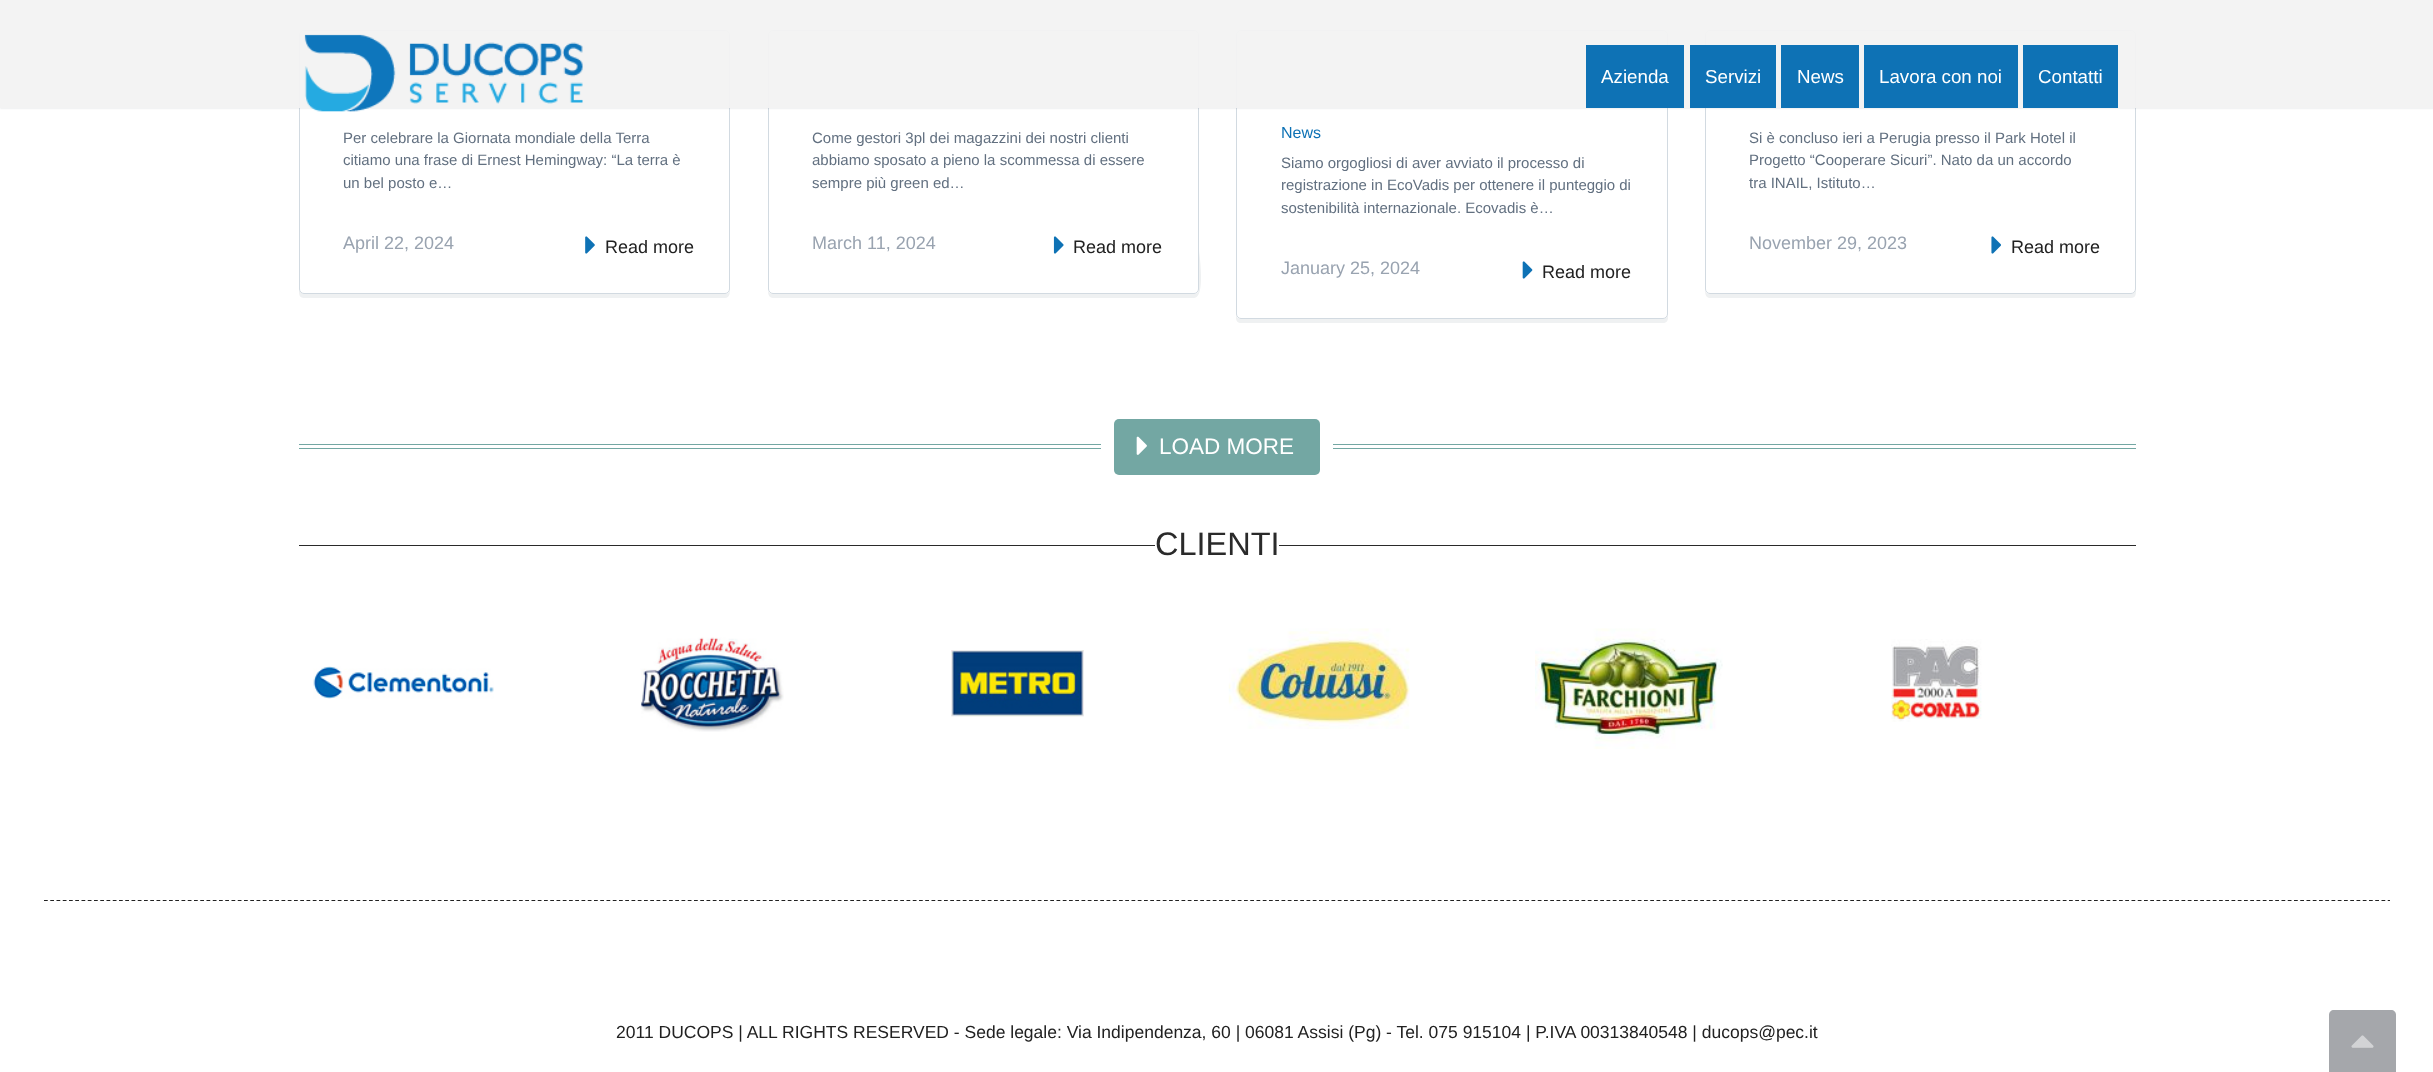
<svg xmlns="http://www.w3.org/2000/svg" width="2433" height="1072" viewBox="0 0 2433 1072">
  <defs>
    <clipPath id="clip1"><path d="M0 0H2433V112H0ZM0 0H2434V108H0Z" clip-rule="evenodd"/></clipPath>
  </defs>
  <rect width="100%" height="100%" fill="#fff"/>
  <path d="M299 290C299 294 299 298 304 298H725C730 298 730 292 730 289C730 292 728 294 725 294H304C302 294 300 292 299 290Z" fill="#eff1f2"/>
  <rect x="299.5" y="30.5" width="430" height="263" rx="4.5" fill="#fff" stroke="#d2dae1"/>
  <path d="M768 291C768 294 769 298 773 298H1194C1206 298 1199 251 1199 251V37V289C1199 292 1197 294 1194 294H772C771 294 769 293 768 291Z" fill="#eff1f2"/>
  <rect x="768.5" y="30.5" width="430" height="263" rx="4.5" fill="#fff" stroke="#d2dae1"/>
  <path d="M1236 37V318C1236 321 1238 323 1241 323H1663C1666 323 1668 321 1668 318V39V37V314C1668 317 1665 319 1662 319H1241C1238 319 1236 317 1236 314Z" fill="#eff1f2"/>
  <rect x="1236.5" y="30.5" width="431" height="288" rx="4.5" fill="#fff" stroke="#d2dae1"/>
  <path d="M1705 289C1705 292 1705 298 1710 298H2131C2136 298 2136 294 2136 290C2135 292 2133 294 2131 294H1710C1707 294 1705 292 1705 289Z" fill="#eff1f2"/>
  <rect x="1705.5" y="30.5" width="430" height="263" rx="4.5" fill="#fff" stroke="#d2dae1"/>
  <g clip-path="url(#clip1)">
    <path d="M0 0h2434v108H0z" fill="#38455433" filter="blur(1px)"/>
  </g>
  <path d="M0 0h2433v108H0z" fill="#f2f2f2f2"/>
  <image x="304" y="34" width="279" height="78" href="img/1.png"/>
  <path d="M1586 45h98v63H1586z" fill="#0e72b5"/>
  <path d="M1690 45h86v63H1690z" fill="#0e72b5"/>
  <path d="M1781 45h78v63H1781z" fill="#0e72b5"/>
  <path d="M1864 45h154v63H1864z" fill="#0e72b5"/>
  <path d="M2023 45h95v63H2023z" fill="#0e72b5"/>
  <image x="585" y="236" width="10" height="18" href="img/2.png"/>
  <image x="1053" y="236" width="11" height="18" href="img/3.png"/>
  <image x="1522" y="261" width="11" height="18" href="img/4.png"/>
  <image x="1991" y="236" width="10" height="18" href="img/5.png"/>
  <path d="M299 444h802v1H299z" fill="#73a7a3"/>
  <path d="M299 448h802v1H299z" fill="#73a7a3"/>
  <rect x="1114" y="419" width="206" height="56" rx="5" fill="#73a7a3"/>
  <image x="1136" y="436" width="11" height="19" href="img/6.png"/>
  <path d="M1333 444h803v1H1333z" fill="#73a7a3"/>
  <path d="M1333 448h803v1H1333z" fill="#73a7a3"/>
  <path d="M299 545h856v1H299z" fill="#2a2a2a"/>
  <path d="M1279 545h857v1H1279z" fill="#2a2a2a"/>
  <image x="313" y="666" width="181" height="33" href="img/7.png"/>
  <image x="640" y="637" width="144" height="95" href="img/8.png"/>
  <image x="951" y="650" width="133" height="67" href="img/9.png"/>
  <image x="1228" y="628" width="182" height="101" href="img/10.png"/>
  <image x="1535" y="628" width="188" height="121" href="img/11.png"/>
  <image x="1891" y="639" width="91" height="83" href="img/12.png"/>
  <path d="M44 900.5H2390" fill="none" stroke="#212121" stroke-width="1.2" stroke-dasharray="3.75 2.5"/>
  <path d="M2334 1010H2391C2394 1010 2396 1012 2396 1015V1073H2329V1015C2329 1012 2331 1010 2334 1010Z" fill="#a5a7ab"/>
  <image x="2351" y="1035" width="23" height="13" href="img/13.png"/>
  <g font-family="Liberation Sans" font-size="18.75" fill="#fff">
    <text x="1601" y="83">Azienda</text>
    <text x="1705" y="83">Servizi</text>
    <text x="1797" y="83">News</text>
    <text x="1879" y="83">Lavora con noi</text>
    <text x="2038" y="83">Contatti</text>
  </g>
  <g font-family="Liberation Sans" font-size="15" fill="#627080">
    <text x="343" y="143">Per celebrare la Giornata mondiale della Terra</text>
    <text x="343" y="165">citiamo una frase di Ernest Hemingway: “La terra è</text>
    <text x="343" y="188">un bel posto e…</text>
  </g>
  <text x="343" y="249" font-family="Liberation Sans" font-size="18" fill="#99a3b0">April 22, 2024</text>
  <text x="605" y="253" font-family="Liberation Sans" font-size="18" fill="#212121">Read more</text>
  <g font-family="Liberation Sans" font-size="15" fill="#627080">
    <text x="812" y="143">Come gestori 3pl dei magazzini dei nostri clienti</text>
    <text x="812" y="165">abbiamo sposato a pieno la scommessa di essere</text>
    <text x="812" y="188">sempre più green ed…</text>
  </g>
  <text x="812" y="249" font-family="Liberation Sans" font-size="18" fill="#99a3b0">March 11, 2024</text>
  <text x="1073" y="253" font-family="Liberation Sans" font-size="18" fill="#212121">Read more</text>
  <text x="1281" y="138" font-family="Liberation Sans" font-size="16" fill="#0e72b5">News</text>
  <g font-family="Liberation Sans" font-size="15" fill="#627080">
    <text x="1281" y="168">Siamo orgogliosi di aver avviato il processo di</text>
    <text x="1281" y="190">registrazione in EcoVadis per ottenere il punteggio di</text>
    <text x="1281" y="213">sostenibilità internazionale. Ecovadis è…</text>
  </g>
  <text x="1281" y="274" font-family="Liberation Sans" font-size="18" fill="#99a3b0">January 25, 2024</text>
  <text x="1542" y="278" font-family="Liberation Sans" font-size="18" fill="#212121">Read more</text>
  <g font-family="Liberation Sans" font-size="15" fill="#627080">
    <text x="1749" y="143">Si è concluso ieri a Perugia presso il Park Hotel il</text>
    <text x="1749" y="165">Progetto “Cooperare Sicuri”. Nato da un accordo</text>
    <text x="1749" y="188">tra INAIL, Istituto…</text>
  </g>
  <text x="1749" y="249" font-family="Liberation Sans" font-size="18" fill="#99a3b0">November 29, 2023</text>
  <text x="2011" y="253" font-family="Liberation Sans" font-size="18" fill="#212121">Read more</text>
  <text x="1159" y="454" font-family="Liberation Sans" font-size="22.5" fill="#fff">LOAD MORE</text>
  <text x="1155" y="555" font-family="Liberation Sans" font-size="32.5" fill="#2a2a2a">CLIENTI</text>
  <text x="616" y="1038" font-family="Liberation Sans" font-size="17.5" fill="#212121">2011 DUCOPS | ALL RIGHTS RESERVED - Sede legale: Via Indipendenza, 60 | 06081 Assisi (Pg) - Tel. 075 915104 | P.IVA 00313840548 | ducops@pec.it</text>
</svg>
